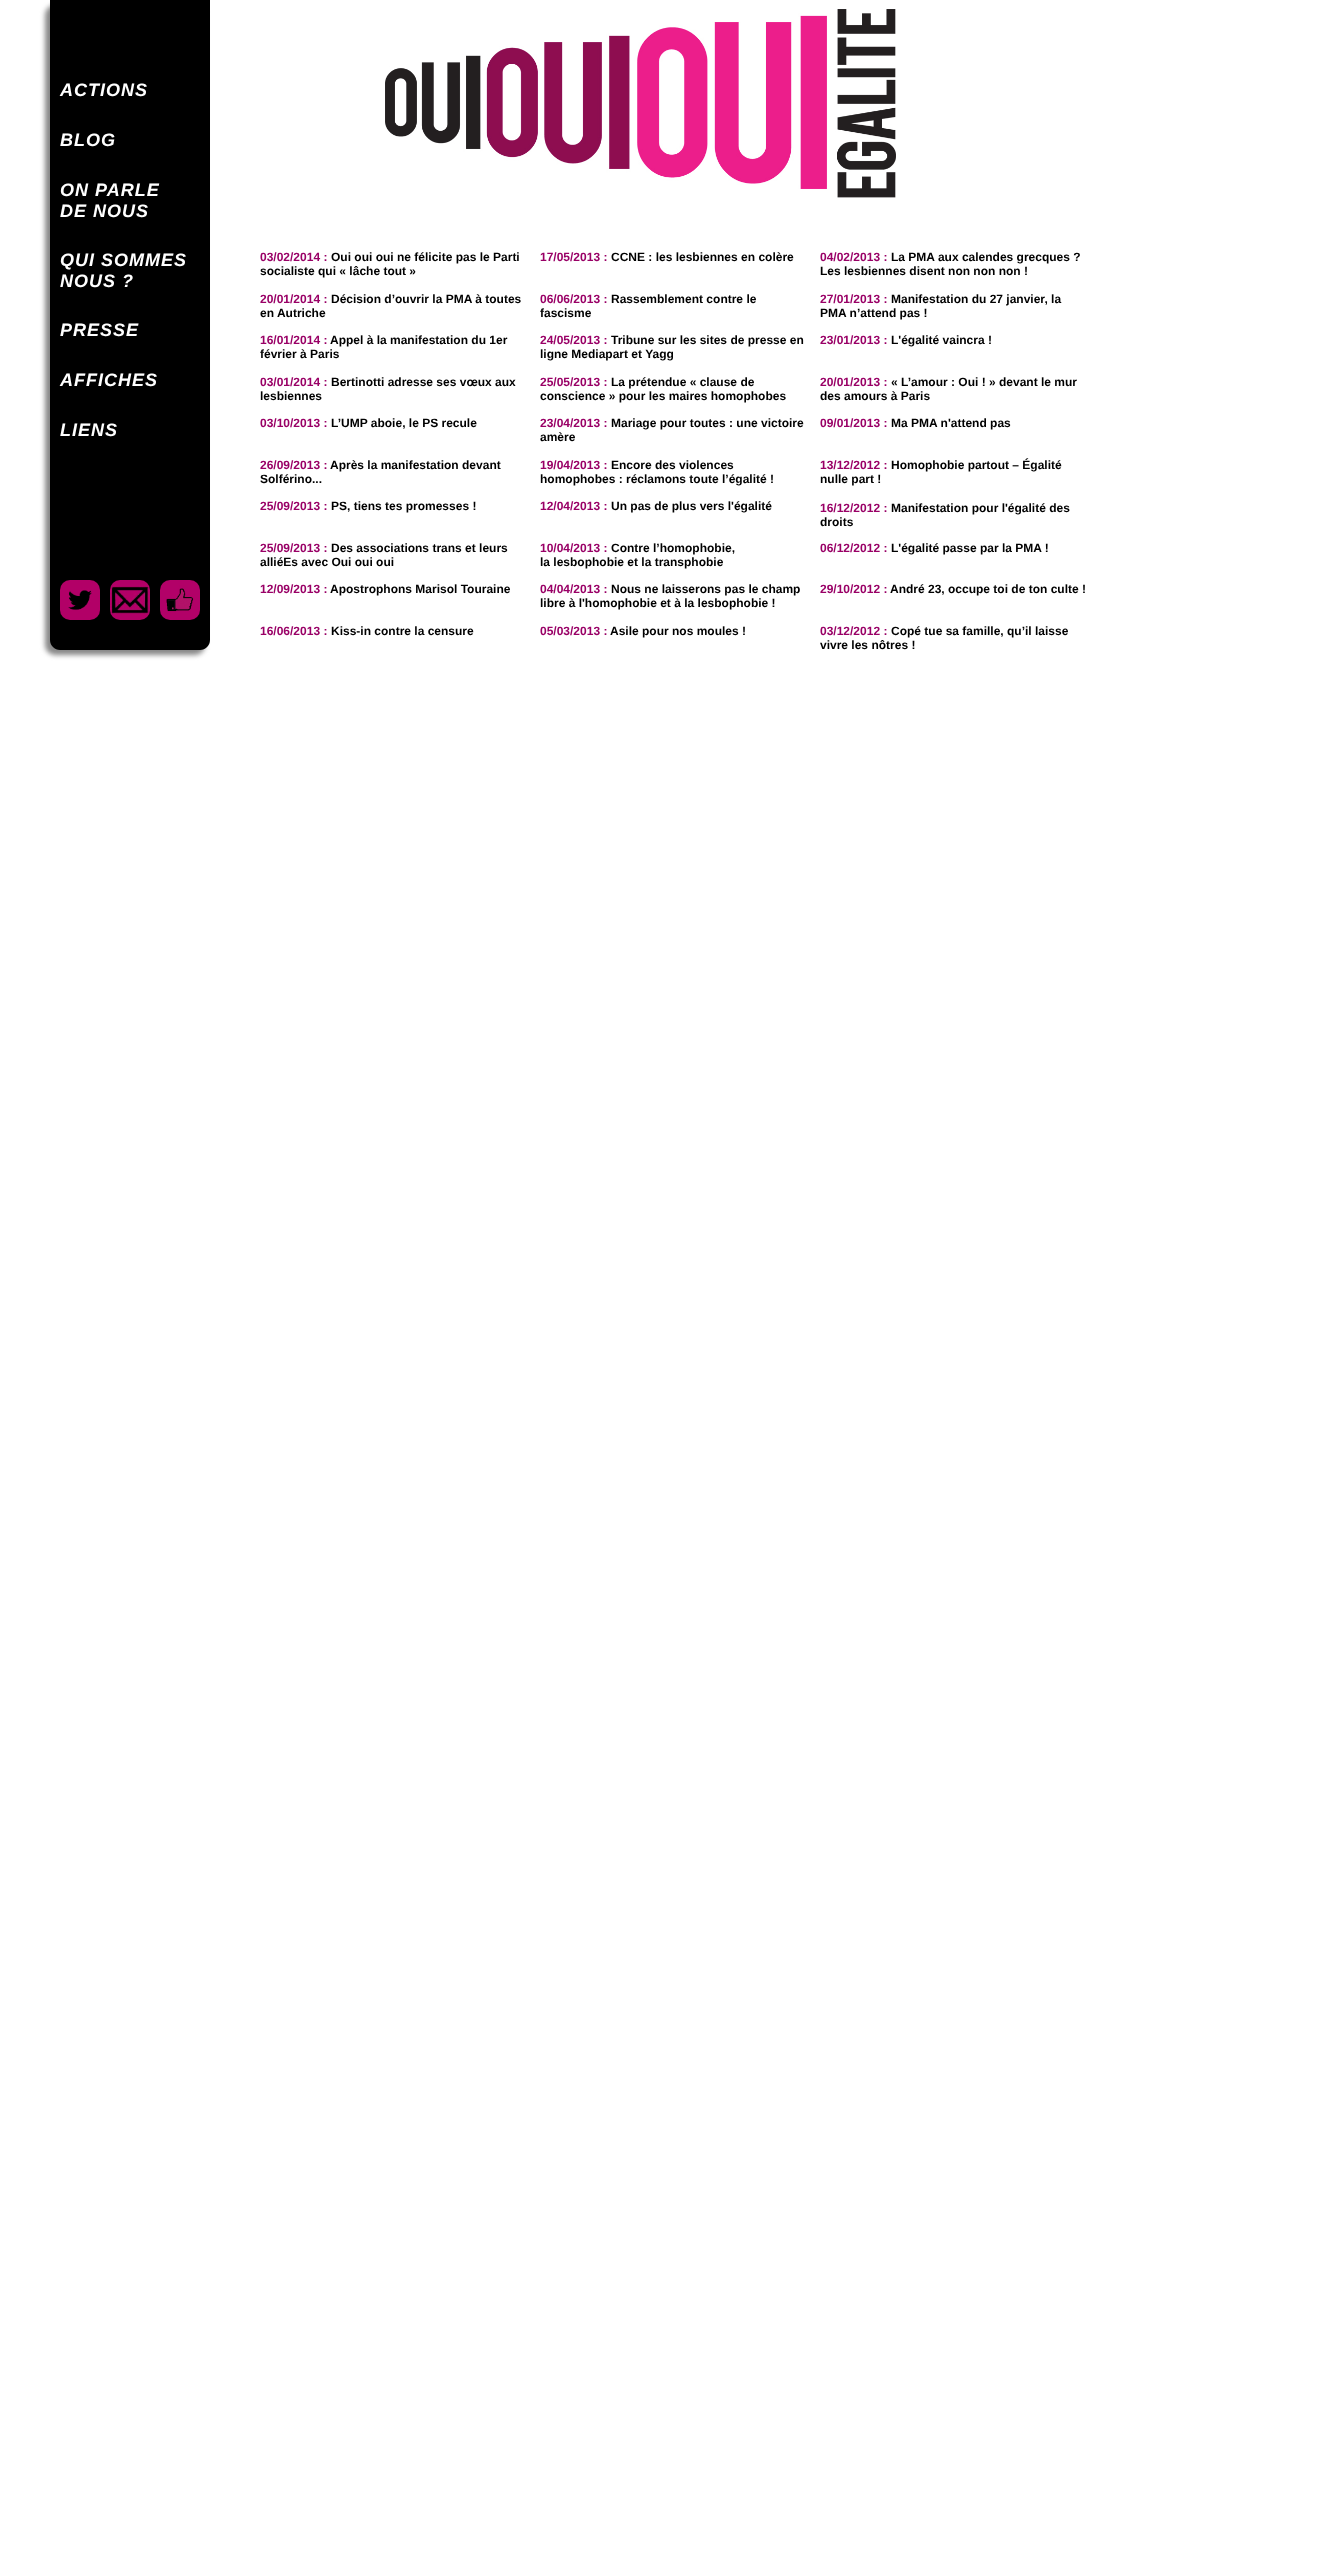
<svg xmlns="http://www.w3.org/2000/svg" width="1317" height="2569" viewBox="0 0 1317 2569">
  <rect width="100%" height="100%" fill="#fff"/>
  <rect x="45" y="5" width="160" height="650" rx="10" fill="#888" filter="blur(2.5px)"/>
  <path d="M50 0H210V640C210 645.5 205.5 650 200 650H60C54.5 650 50 645.5 50 640Z" fill="#000"/>
  <image x="385" y="9" width="511" height="189" href="img/1.png"/>
  <image x="60" y="580" width="40" height="40" href="img/2.png"/>
  <image x="110" y="580" width="40" height="40" href="img/3.png"/>
  <image x="160" y="580" width="40" height="40" href="img/4.png"/>
  <g font-family="Liberation Sans" font-size="18" font-weight="bold" font-style="italic" letter-spacing="1" fill="#fff">
    <text x="60" y="96">ACTIONS</text>
    <text x="60" y="146">BLOG</text>
    <text x="60" y="196">ON PARLE</text>
    <text x="60" y="217">DE NOUS</text>
    <text x="60" y="266">QUI SOMMES</text>
    <text x="60" y="287">NOUS ?</text>
  </g>
  <text x="260" y="261" font-family="Liberation Sans" font-size="12" font-weight="bold" fill="#906">03/02/2014 :</text>
  <g font-family="Liberation Sans" font-size="12" font-weight="bold" fill="#000">
    <text x="331" y="261">Oui oui oui ne félicite pas le Parti</text>
    <text x="260" y="275">socialiste qui « lâche tout »</text>
  </g>
  <text x="540" y="261" font-family="Liberation Sans" font-size="12" font-weight="bold" fill="#906">17/05/2013 :</text>
  <text x="611" y="261" font-family="Liberation Sans" font-size="12" font-weight="bold" fill="#000">CCNE : les lesbiennes en colère</text>
  <text x="820" y="261" font-family="Liberation Sans" font-size="12" font-weight="bold" fill="#906">04/02/2013 :</text>
  <g font-family="Liberation Sans" font-size="12" font-weight="bold" fill="#000">
    <text x="891" y="261">La PMA aux calendes grecques ?</text>
    <text x="820" y="275">Les lesbiennes disent non non non !</text>
  </g>
  <text x="260" y="303" font-family="Liberation Sans" font-size="12" font-weight="bold" fill="#906">20/01/2014 :</text>
  <g font-family="Liberation Sans" font-size="12" font-weight="bold" fill="#000">
    <text x="331" y="303">Décision d’ouvrir la PMA à toutes</text>
    <text x="260" y="317">en Autriche</text>
  </g>
  <text x="540" y="303" font-family="Liberation Sans" font-size="12" font-weight="bold" fill="#906">06/06/2013 :</text>
  <g font-family="Liberation Sans" font-size="12" font-weight="bold" fill="#000">
    <text x="611" y="303">Rassemblement contre le</text>
    <text x="540" y="317">fascisme</text>
  </g>
  <text x="820" y="303" font-family="Liberation Sans" font-size="12" font-weight="bold" fill="#906">27/01/2013 :</text>
  <g font-family="Liberation Sans" font-size="12" font-weight="bold" fill="#000">
    <text x="891" y="303">Manifestation du 27 janvier, la</text>
    <text x="820" y="317">PMA n’attend pas !</text>
  </g>
  <text x="260" y="344" font-family="Liberation Sans" font-size="12" font-weight="bold" fill="#906">16/01/2014 :</text>
  <g font-family="Liberation Sans" font-size="12" font-weight="bold" fill="#000">
    <text x="330" y="344">Appel à la manifestation du 1er</text>
    <text x="260" y="358">février à Paris</text>
  </g>
  <text x="540" y="344" font-family="Liberation Sans" font-size="12" font-weight="bold" fill="#906">24/05/2013 :</text>
  <g font-family="Liberation Sans" font-size="12" font-weight="bold" fill="#000">
    <text x="611" y="344">Tribune sur les sites de presse en</text>
    <text x="540" y="358">ligne Mediapart et Yagg</text>
  </g>
  <text x="820" y="344" font-family="Liberation Sans" font-size="12" font-weight="bold" fill="#906">23/01/2013 :</text>
  <text x="891" y="344" font-family="Liberation Sans" font-size="12" font-weight="bold" fill="#000">L'égalité vaincra !</text>
  <text x="260" y="386" font-family="Liberation Sans" font-size="12" font-weight="bold" fill="#906">03/01/2014 :</text>
  <g font-family="Liberation Sans" font-size="12" font-weight="bold" fill="#000">
    <text x="331" y="386">Bertinotti adresse ses vœux aux</text>
    <text x="260" y="400">lesbiennes</text>
  </g>
  <text x="540" y="386" font-family="Liberation Sans" font-size="12" font-weight="bold" fill="#906">25/05/2013 :</text>
  <g font-family="Liberation Sans" font-size="12" font-weight="bold" fill="#000">
    <text x="611" y="386">La prétendue « clause de</text>
    <text x="540" y="400">conscience » pour les maires homophobes</text>
  </g>
  <text x="820" y="386" font-family="Liberation Sans" font-size="12" font-weight="bold" fill="#906">20/01/2013 :</text>
  <g font-family="Liberation Sans" font-size="12" font-weight="bold" fill="#000">
    <text x="891" y="386">« L’amour : Oui ! » devant le mur</text>
    <text x="820" y="400">des amours à Paris</text>
  </g>
  <text x="260" y="427" font-family="Liberation Sans" font-size="12" font-weight="bold" fill="#906">03/10/2013 :</text>
  <text x="331" y="427" font-family="Liberation Sans" font-size="12" font-weight="bold" fill="#000">L’UMP aboie, le PS recule</text>
  <text x="540" y="427" font-family="Liberation Sans" font-size="12" font-weight="bold" fill="#906">23/04/2013 :</text>
  <g font-family="Liberation Sans" font-size="12" font-weight="bold" fill="#000">
    <text x="611" y="427">Mariage pour toutes : une victoire</text>
    <text x="540" y="441">amère</text>
  </g>
  <text x="820" y="427" font-family="Liberation Sans" font-size="12" font-weight="bold" fill="#906">09/01/2013 :</text>
  <text x="891" y="427" font-family="Liberation Sans" font-size="12" font-weight="bold" fill="#000">Ma PMA n'attend pas</text>
  <text x="260" y="469" font-family="Liberation Sans" font-size="12" font-weight="bold" fill="#906">26/09/2013 :</text>
  <g font-family="Liberation Sans" font-size="12" font-weight="bold" fill="#000">
    <text x="330" y="469">Après la manifestation devant</text>
    <text x="260" y="483">Solférino...</text>
  </g>
  <text x="540" y="469" font-family="Liberation Sans" font-size="12" font-weight="bold" fill="#906">19/04/2013 :</text>
  <g font-family="Liberation Sans" font-size="12" font-weight="bold" fill="#000">
    <text x="611" y="469">Encore des violences</text>
    <text x="540" y="483">homophobes : réclamons toute l’égalité !</text>
  </g>
  <text x="820" y="469" font-family="Liberation Sans" font-size="12" font-weight="bold" fill="#906">13/12/2012 :</text>
  <g font-family="Liberation Sans" font-size="12" font-weight="bold" fill="#000">
    <text x="891" y="469">Homophobie partout – Égalité</text>
    <text x="820" y="483">nulle part !</text>
  </g>
  <text x="260" y="510" font-family="Liberation Sans" font-size="12" font-weight="bold" fill="#906">25/09/2013 :</text>
  <text x="331" y="510" font-family="Liberation Sans" font-size="12" font-weight="bold" fill="#000">PS, tiens tes promesses !</text>
  <text x="540" y="510" font-family="Liberation Sans" font-size="12" font-weight="bold" fill="#906">12/04/2013 :</text>
  <text x="611" y="510" font-family="Liberation Sans" font-size="12" font-weight="bold" fill="#000">Un pas de plus vers l'égalité</text>
  <text x="820" y="512" font-family="Liberation Sans" font-size="12" font-weight="bold" fill="#906">16/12/2012 :</text>
  <g font-family="Liberation Sans" font-size="12" font-weight="bold" fill="#000">
    <text x="891" y="512">Manifestation pour l'égalité des</text>
    <text x="820" y="526">droits</text>
  </g>
  <text x="260" y="552" font-family="Liberation Sans" font-size="12" font-weight="bold" fill="#906">25/09/2013 :</text>
  <g font-family="Liberation Sans" font-size="12" font-weight="bold" fill="#000">
    <text x="331" y="552">Des associations trans et leurs</text>
    <text x="260" y="566">alliéEs avec Oui oui oui</text>
  </g>
  <text x="540" y="552" font-family="Liberation Sans" font-size="12" font-weight="bold" fill="#906">10/04/2013 :</text>
  <g font-family="Liberation Sans" font-size="12" font-weight="bold" fill="#000">
    <text x="611" y="552">Contre l’homophobie,</text>
    <text x="540" y="566">la lesbophobie et la transphobie</text>
  </g>
  <text x="820" y="552" font-family="Liberation Sans" font-size="12" font-weight="bold" fill="#906">06/12/2012 :</text>
  <text x="891" y="552" font-family="Liberation Sans" font-size="12" font-weight="bold" fill="#000">L'égalité passe par la PMA !</text>
  <text x="260" y="593" font-family="Liberation Sans" font-size="12" font-weight="bold" fill="#906">12/09/2013 :</text>
  <text x="330" y="593" font-family="Liberation Sans" font-size="12" font-weight="bold" fill="#000">Apostrophons Marisol Touraine</text>
  <text x="540" y="593" font-family="Liberation Sans" font-size="12" font-weight="bold" fill="#906">04/04/2013 :</text>
  <g font-family="Liberation Sans" font-size="12" font-weight="bold" fill="#000">
    <text x="611" y="593">Nous ne laisserons pas le champ</text>
    <text x="540" y="607">libre à l'homophobie et à la lesbophobie !</text>
  </g>
  <text x="820" y="593" font-family="Liberation Sans" font-size="12" font-weight="bold" fill="#906">29/10/2012 :</text>
  <text x="890" y="593" font-family="Liberation Sans" font-size="12" font-weight="bold" fill="#000">André 23, occupe toi de ton culte !</text>
  <text x="260" y="635" font-family="Liberation Sans" font-size="12" font-weight="bold" fill="#906">16/06/2013 :</text>
  <text x="331" y="635" font-family="Liberation Sans" font-size="12" font-weight="bold" fill="#000">Kiss-in contre la censure</text>
  <text x="540" y="635" font-family="Liberation Sans" font-size="12" font-weight="bold" fill="#906">05/03/2013 :</text>
  <text x="610" y="635" font-family="Liberation Sans" font-size="12" font-weight="bold" fill="#000">Asile pour nos moules !</text>
  <text x="820" y="635" font-family="Liberation Sans" font-size="12" font-weight="bold" fill="#906">03/12/2012 :</text>
  <g font-family="Liberation Sans" font-size="12" font-weight="bold" fill="#000">
    <text x="891" y="635">Copé tue sa famille, qu’il laisse</text>
    <text x="820" y="649">vivre les nôtres !</text>
  </g>
  <g font-family="Liberation Sans" font-size="18" font-weight="bold" font-style="italic" letter-spacing="1" fill="#fff">
    <text x="60" y="336">PRESSE</text>
    <text x="60" y="386">AFFICHES</text>
    <text x="60" y="436">LIENS</text>
  </g>
</svg>
